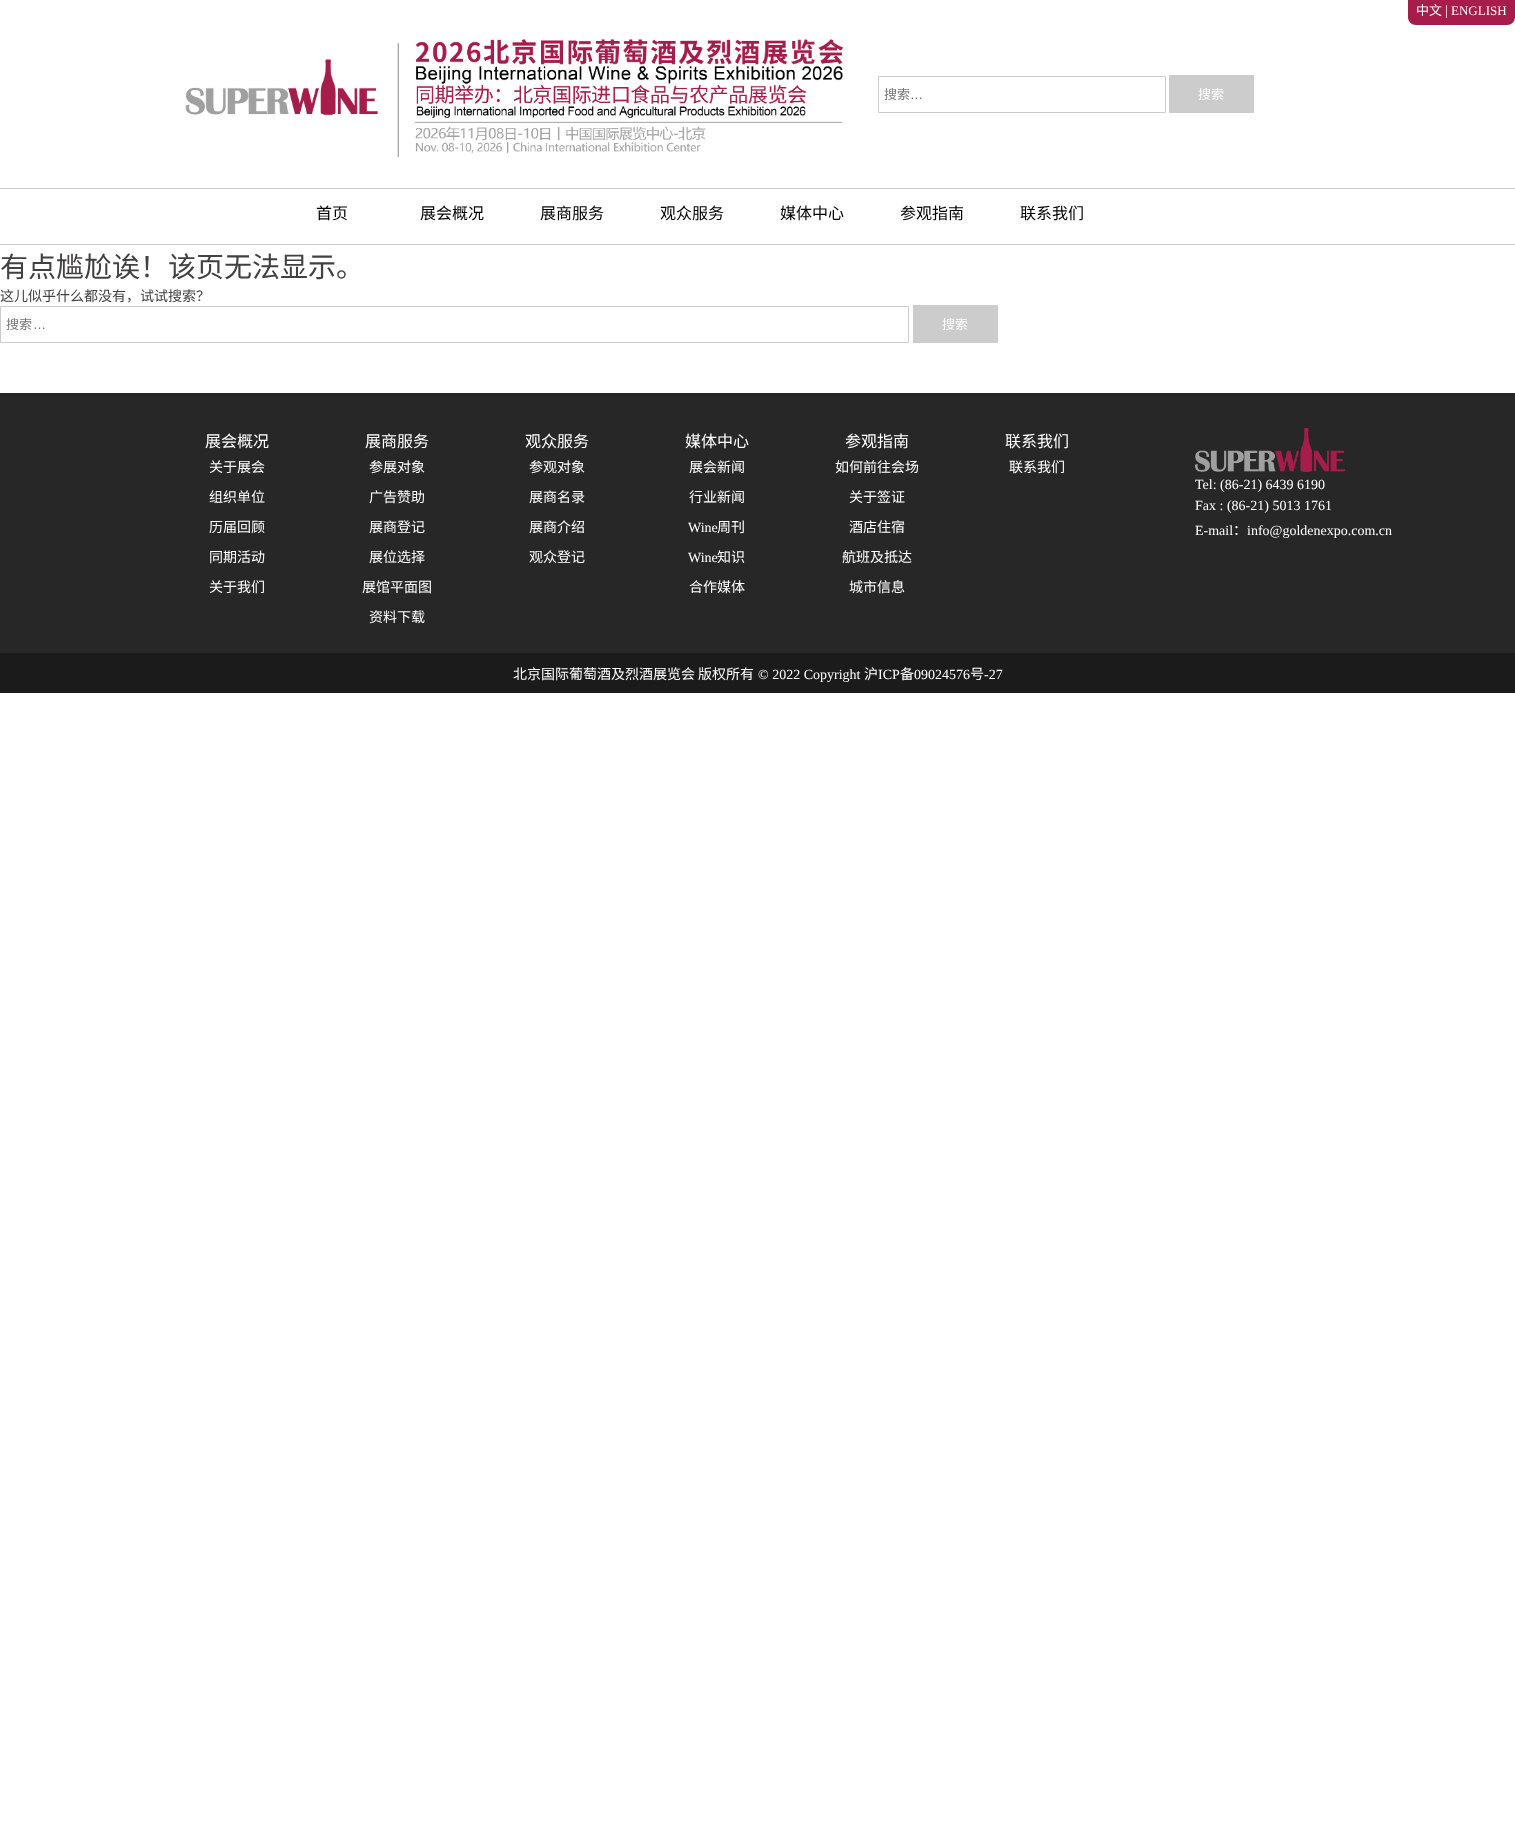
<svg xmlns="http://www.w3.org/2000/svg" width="1515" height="1846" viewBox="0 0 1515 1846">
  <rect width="100%" height="100%" fill="#fff"/>
  <path d="M0 188h1515v1H0z" fill="#ccc"/>
  <path d="M1408 0H1515V17C1515 21.5 1511.5 25 1507 25H1416C1411.5 25 1408 21.5 1408 17Z" fill="#a61c4b"/>
  <image x="185" y="39" width="659" height="118" href="img/1.png"/>
  <path d="M878.5 76.5h287v36H878.5z" fill="none" stroke="#ccc"/>
  <path d="M1169 75h85v38H1169z" fill="#ccc"/>
  <path d="M0 244h1515v1H0z" fill="#ccc"/>
  <path d="M0.5 306.5h908v36H0.5z" fill="none" stroke="#ccc"/>
  <path d="M913 305h85v38H913z" fill="#ccc"/>
  <path d="M0 393h1515v260H0z" fill="#272727"/>
  <image x="1195" y="428" width="150" height="44" href="img/2.png"/>
  <path d="M0 653h1515v40H0z" fill="#1b1b1b"/>
  <text x="1416" y="15" font-family="Noto Sans CJK SC" font-size="13" fill="#fff">中文</text>
  <text x="1445" y="15" font-family="Liberation Serif" font-size="14" fill="#fff">|</text>
  <text x="1451" y="15" font-family="Liberation Serif" font-size="13" fill="#fff">ENGLISH</text>
  <text x="884" y="99" font-family="Noto Sans CJK SC" font-size="13" fill="#757575">搜索</text>
  <text x="910" y="99" font-family="Liberation Sans" font-size="13" fill="#757575">…</text>
  <text x="1198" y="99" font-family="Noto Sans CJK SC" font-size="13" fill="#fff">搜索</text>
  <g font-family="Noto Sans CJK SC" font-size="16" fill="#000">
    <text x="316" y="219">首页</text>
    <text x="420" y="219">展会概况</text>
    <text x="540" y="219">展商服务</text>
    <text x="660" y="219">观众服务</text>
    <text x="780" y="219">媒体中心</text>
    <text x="900" y="219">参观指南</text>
    <text x="1020" y="219">联系我们</text>
  </g>
  <text x="0" y="277" font-family="Noto Sans CJK SC" font-size="28" fill="#424040">有点尴尬诶！该页无法显示。</text>
  <text x="0" y="301" font-family="Noto Sans CJK SC" font-size="14" fill="#424040">这儿似乎什么都没有，试试搜索？</text>
  <text x="6" y="329" font-family="Noto Sans CJK SC" font-size="13" fill="#757575">搜索</text>
  <text x="33" y="329" font-family="Liberation Sans" font-size="13" fill="#757575">…</text>
  <text x="942" y="329" font-family="Noto Sans CJK SC" font-size="13" fill="#fff">搜索</text>
  <text x="205" y="447" font-family="Noto Sans CJK SC" font-size="16" fill="#fff">展会概况</text>
  <g font-family="Noto Sans CJK SC" font-size="14" fill="#fff">
    <text x="209" y="472">关于展会</text>
    <text x="209" y="502">组织单位</text>
    <text x="209" y="532">历届回顾</text>
    <text x="209" y="562">同期活动</text>
    <text x="209" y="592">关于我们</text>
  </g>
  <text x="365" y="447" font-family="Noto Sans CJK SC" font-size="16" fill="#fff">展商服务</text>
  <g font-family="Noto Sans CJK SC" font-size="14" fill="#fff">
    <text x="369" y="472">参展对象</text>
    <text x="369" y="502">广告赞助</text>
    <text x="369" y="532">展商登记</text>
    <text x="369" y="562">展位选择</text>
    <text x="362" y="592">展馆平面图</text>
    <text x="369" y="622">资料下载</text>
  </g>
  <text x="525" y="447" font-family="Noto Sans CJK SC" font-size="16" fill="#fff">观众服务</text>
  <g font-family="Noto Sans CJK SC" font-size="14" fill="#fff">
    <text x="529" y="472">参观对象</text>
    <text x="529" y="502">展商名录</text>
    <text x="529" y="532">展商介绍</text>
    <text x="529" y="562">观众登记</text>
  </g>
  <text x="685" y="447" font-family="Noto Sans CJK SC" font-size="16" fill="#fff">媒体中心</text>
  <g font-family="Noto Sans CJK SC" font-size="14" fill="#fff">
    <text x="689" y="472">展会新闻</text>
    <text x="689" y="502">行业新闻</text>
  </g>
  <text x="688" y="532" font-family="Liberation Serif" font-size="14" fill="#fff">Wine</text>
  <text x="717" y="532" font-family="Noto Sans CJK SC" font-size="14" fill="#fff">周刊</text>
  <text x="688" y="562" font-family="Liberation Serif" font-size="14" fill="#fff">Wine</text>
  <g font-family="Noto Sans CJK SC" font-size="14" fill="#fff">
    <text x="717" y="562">知识</text>
    <text x="689" y="592">合作媒体</text>
  </g>
  <text x="845" y="447" font-family="Noto Sans CJK SC" font-size="16" fill="#fff">参观指南</text>
  <g font-family="Noto Sans CJK SC" font-size="14" fill="#fff">
    <text x="835" y="472">如何前往会场</text>
    <text x="849" y="502">关于签证</text>
    <text x="849" y="532">酒店住宿</text>
    <text x="842" y="562">航班及抵达</text>
    <text x="849" y="592">城市信息</text>
  </g>
  <text x="1005" y="447" font-family="Noto Sans CJK SC" font-size="16" fill="#fff">联系我们</text>
  <text x="1009" y="472" font-family="Noto Sans CJK SC" font-size="14" fill="#fff">联系我们</text>
  <g font-family="Liberation Serif" font-size="14" fill="#fff">
    <text x="1195" y="489">Tel: (86-21) 6439 6190</text>
    <text x="1195" y="510">Fax : (86-21) 5013 1761</text>
    <text x="1195" y="535">E-mail</text>
  </g>
  <text x="1233" y="535" font-family="Noto Sans CJK SC" font-size="14" fill="#fff">：</text>
  <text x="1247" y="535" font-family="Liberation Serif" font-size="14" fill="#fff">info@goldenexpo.com.cn</text>
  <g font-family="Noto Sans CJK SC" font-size="14" fill="#fff">
    <text x="513" y="679">北京国际葡萄酒及烈酒展览会</text>
    <text x="698" y="679">版权所有</text>
  </g>
  <text x="758" y="679" font-family="Liberation Serif" font-size="14" fill="#fff">© 2022 Copyright</text>
  <text x="864" y="679" font-family="Noto Sans CJK SC" font-size="14" fill="#fff">沪</text>
  <text x="878" y="679" font-family="Liberation Serif" font-size="14" fill="#fff">ICP</text>
  <text x="900" y="679" font-family="Noto Sans CJK SC" font-size="14" fill="#fff">备</text>
  <text x="914" y="679" font-family="Liberation Serif" font-size="14" fill="#fff">09024576</text>
  <text x="970" y="679" font-family="Noto Sans CJK SC" font-size="14" fill="#fff">号</text>
  <text x="984" y="679" font-family="Liberation Serif" font-size="14" fill="#fff">-27</text>
</svg>
